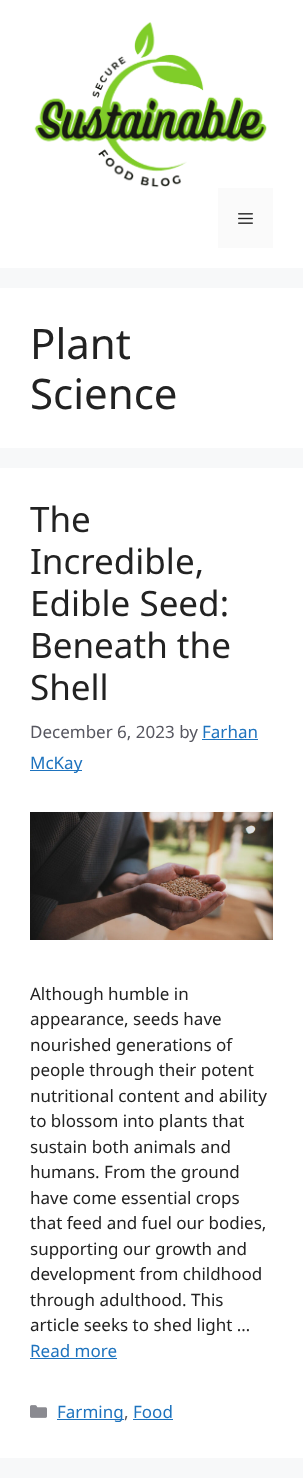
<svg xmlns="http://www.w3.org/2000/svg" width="303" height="1480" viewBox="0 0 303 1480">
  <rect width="100%" height="100%" fill="#f7f8f9"/>
  <path d="M0 0h303v268H0z" fill="#fff"/>
  <image x="34" y="22" width="233" height="166" href="img/1.png"/>
  <path d="M218 188h55v60H218z" fill="#fafafa"/>
  <image x="238" y="213" width="15" height="11" href="img/2.png"/>
  <path d="M0 288h303v160H0z" fill="#fff"/>
  <path d="M0 468h303v990H0z" fill="#fff"/>
  <path d="M202 739h56v1H202z" fill="#1e73be"/>
  <path d="M30 770h52v1H30z" fill="#1e73be"/>
  <image x="30" y="812" width="243" height="128" href="img/3.png"/>
  <path d="M30 1358h87v1H30z" fill="#1e73be"/>
  <image x="30" y="1405" width="17" height="13" href="img/4.png"/>
  <path d="M57 1419h67v1H57z" fill="#1e73be"/>
  <path d="M133 1419h40v1H133z" fill="#1e73be"/>
  <path d="M0 1478h303v2H0z" fill="#fff"/>
  <g font-family="Noto Sans" font-size="42" fill="#222">
    <text x="30" y="359">Plant</text>
    <text x="30" y="409">Science</text>
  </g>
  <g font-family="Noto Sans" font-size="35" fill="#222">
    <text x="30" y="532">The</text>
    <text x="30" y="574">Incredible,</text>
    <text x="30" y="616">Edible Seed:</text>
    <text x="30" y="658">Beneath the</text>
    <text x="30" y="700">Shell</text>
  </g>
  <text x="30" y="738" font-family="Noto Sans" font-size="17" fill="#575760">December 6, 2023 by</text>
  <g font-family="Noto Sans" font-size="17" fill="#1e73be">
    <text x="202" y="738">Farhan</text>
    <text x="30" y="769">McKay</text>
  </g>
  <g font-family="Noto Sans" font-size="17" fill="#222">
    <text x="30" y="1000">Although humble in</text>
    <text x="30" y="1025">appearance, seeds have</text>
    <text x="30" y="1051">nourished generations of</text>
    <text x="30" y="1076">people through their potent</text>
    <text x="30" y="1102">nutritional content and ability</text>
    <text x="30" y="1127">to blossom into plants that</text>
    <text x="30" y="1153">sustain both animals and</text>
    <text x="30" y="1178">humans. From the ground</text>
    <text x="30" y="1204">have come essential crops</text>
    <text x="30" y="1229">that feed and fuel our bodies,</text>
    <text x="30" y="1255">supporting our growth and</text>
    <text x="30" y="1280">development from childhood</text>
    <text x="30" y="1306">through adulthood. This</text>
    <text x="30" y="1331">article seeks to shed light …</text>
  </g>
  <g font-family="Noto Sans" font-size="17" fill="#1e73be">
    <text x="30" y="1357">Read more</text>
    <text x="57" y="1418">Farming</text>
  </g>
  <text x="124" y="1418" font-family="Noto Sans" font-size="17" fill="#575760">,</text>
  <text x="133" y="1418" font-family="Noto Sans" font-size="17" fill="#1e73be">Food</text>
</svg>
